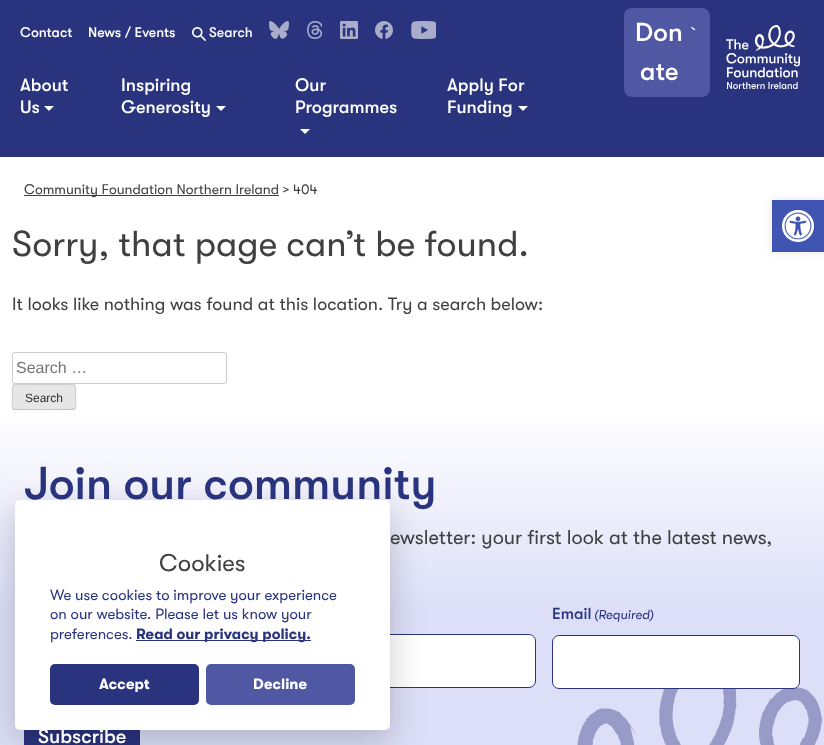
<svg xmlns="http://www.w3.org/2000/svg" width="824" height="745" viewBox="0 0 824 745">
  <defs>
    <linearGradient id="g1" gradientUnits="userSpaceOnUse" x1="412" y1="410" x2="412" y2="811"><stop offset="0" stop-color="#fff"/><stop offset="0.5" stop-color="#dddff8"/></linearGradient>
  </defs>
  <rect width="100%" height="100%" fill="#fff"/>
  <path d="M0 0h824v157H0z" fill="#2a347e"/>
  <image x="192" y="27" width="14" height="14" href="img/1.png"/>
  <image x="269" y="21" width="20" height="18" href="img/2.png"/>
  <image x="307" y="21" width="15" height="18" href="img/3.png"/>
  <image x="340" y="21" width="18" height="18" href="img/4.png"/>
  <image x="375" y="21" width="18" height="18" href="img/5.png"/>
  <image x="411" y="21" width="25" height="18" href="img/6.png"/>
  <path d="M44 106H54L49 111Z" fill="#fff"/>
  <path d="M216 106H226L221 111Z" fill="#fff"/>
  <path d="M300 129H310L305 134Z" fill="#fff"/>
  <path d="M518 106H528L523 111Z" fill="#fff"/>
  <rect x="624" y="8" width="86" height="89" rx="8" fill="#5057a3"/>
  <image x="691" y="26" width="5" height="4" href="img/7.png"/>
  <image x="726" y="25" width="74" height="64" href="img/8.png"/>
  <path d="M24 195h255v1H24z" fill="#404040"/>
  <rect x="12.5" y="352.5" width="214" height="31" rx="2.5" fill="none" stroke="#ccc"/>
  <rect x="12" y="384" width="64" height="26" rx="3" fill="#e6e6e6"/>
  <path d="M75 409H74.5C73.5 410 20 410 15 409.5L13 409" fill="none" stroke="#bbb"/>
  <path d="M13 409C11.5 407 12.5 399.5 12.5 397C12.5 382.5 10 384.5 24.5 384.5H63.5C78 384.5 75.5 382.5 75.5 397C75.5 399.5 76.5 407 75 409" fill="none" stroke="#ccc"/>
  <path d="M0 410h824v335H0z" fill="url(#g1)"/>
  <image x="577" y="687" width="246" height="58" href="img/9.png"/>
  <rect x="552.5" y="635.5" width="247" height="53" rx="6.5" fill="#fff" stroke="#2a347e"/>
  <rect x="288.5" y="634.5" width="247" height="53" rx="6.5" fill="#fff" stroke="#2a347e"/>
  <path d="M24 730h116v15H24z" fill="#2a347e"/>
  <path d="M772 200h52v52H772z" fill="#0000001a" filter="blur(5px)"/>
  <path d="M772 200h52v52H772z" fill="#4054b2"/>
  <image x="782" y="210" width="32" height="32" href="img/10.png"/>
  <rect x="15" y="511" width="375" height="230" rx="5" fill="#02020333" filter="blur(17px)"/>
  <g font-family="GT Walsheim" font-size="14" font-weight="500" fill="#fff">
    <text x="20" y="37">Contact</text>
    <text x="88" y="37">News / Events</text>
  </g>
  <text x="209" y="37" font-family="GT Walsheim" font-size="14" font-weight="500" fill="#f8f9fa">Search</text>
  <g font-family="GT Walsheim" font-size="18" font-weight="500" fill="#fff">
    <text x="20" y="91">About</text>
    <text x="20" y="113">Us</text>
    <text x="121" y="91">Inspiring</text>
    <text x="121" y="113">Generosity</text>
    <text x="295" y="91">Our</text>
    <text x="295" y="113">Programmes</text>
    <text x="447" y="91">Apply For</text>
    <text x="447" y="113">Funding</text>
  </g>
  <g font-family="GT Walsheim" font-size="26" font-weight="500" fill="#fff">
    <text x="635" y="41">Don</text>
    <text x="640" y="80">ate</text>
  </g>
  <text x="24" y="194" font-family="GT Walsheim" font-size="14" fill="#404040">Community Foundation Northern Ireland &gt; 404</text>
  <text x="12" y="256" font-family="GT Walsheim" font-size="36" fill="#404040">Sorry, that page can’t be found.</text>
  <text x="12" y="310" font-family="GT Walsheim" font-size="18" fill="#404040">It looks like nothing was found at this location. Try a search below:</text>
  <text x="16" y="373" font-family="Liberation Sans" font-size="16" fill="#757575">Search …</text>
  <text x="25" y="402" font-family="Liberation Sans" font-size="12" fill="#2e2e2e">Search</text>
  <text x="24" y="499" font-family="GT Walsheim" font-size="46" font-weight="500" fill="#2a347e">Join our community</text>
  <text x="390" y="544" font-family="GT Walsheim" font-size="20" fill="#404040">ewsletter: your first look at the latest news,</text>
  <text x="552" y="619" font-family="GT Walsheim" font-size="16" font-weight="500" fill="#2a347e">Email</text>
  <text x="594" y="619" font-family="GT Walsheim" font-size="13" font-style="italic" fill="#2a347e">(Required)</text>
  <text x="38" y="743" font-family="GT Walsheim" font-size="20" font-weight="500" fill="#fff">Subscribe</text>
  <rect x="15" y="500" width="375" height="230" rx="5" fill="#fff"/>
  <text x="159" y="571" font-family="GT Walsheim" font-size="24" fill="#404040">Cookies</text>
  <g font-family="GT Walsheim" font-size="15" fill="#2a347e">
    <text x="50" y="600">We use cookies to improve your experience</text>
    <text x="50" y="619">on our website. Please let us know your</text>
    <text x="50" y="639">preferences.</text>
  </g>
  <path d="M136 640h175v1H136z" fill="#2a347e"/>
  <text x="136" y="639" font-family="GT Walsheim" font-size="15" font-weight="bold" fill="#2a347e">Read our privacy policy.</text>
  <rect x="50" y="664" width="149" height="41" rx="5" fill="#2a347e"/>
  <text x="99" y="689" font-family="GT Walsheim" font-size="15" font-weight="bold" fill="#fff">Accept</text>
  <rect x="206" y="664" width="149" height="41" rx="5" fill="#5057a3"/>
  <text x="253" y="689" font-family="GT Walsheim" font-size="15" font-weight="bold" fill="#fff">Decline</text>
</svg>
